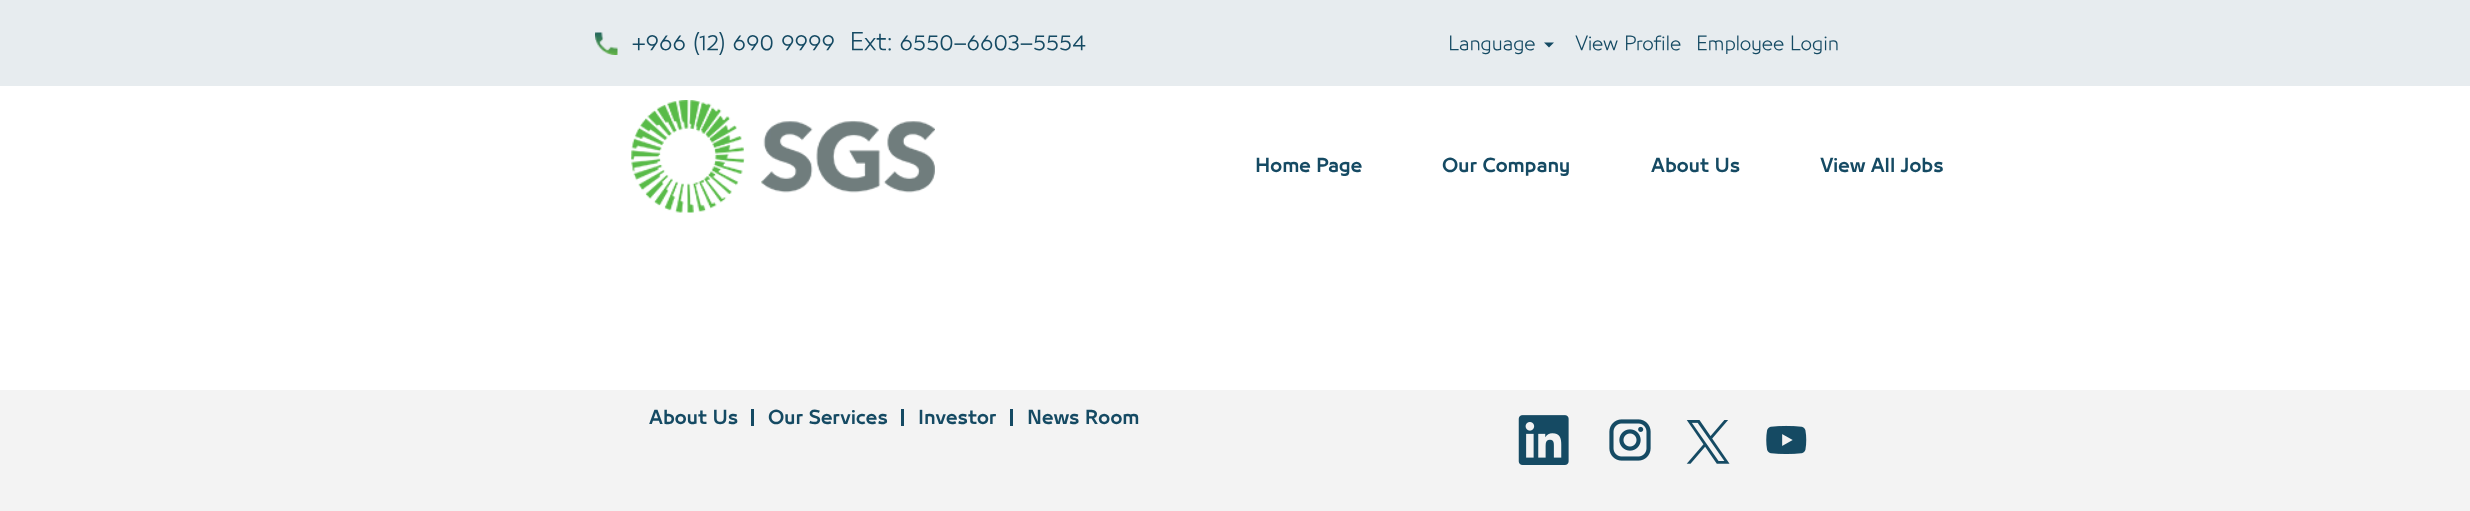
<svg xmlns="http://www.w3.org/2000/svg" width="2470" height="511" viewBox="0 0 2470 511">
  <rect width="100%" height="100%" fill="#fff"/>
  <path d="M0 0h2470v86H0z" fill="#e7ecef"/>
  <image x="595" y="32" width="23" height="23" href="img/1.png"/>
  <path d="M1544 42.5H1554L1549 47.5Z" fill="#154a63"/>
  <image x="631" y="100" width="304" height="113" href="img/2.png"/>
  <path d="M0 390h2470v121H0z" fill="#f3f3f3"/>
  <path d="M751 409h3v17H751z" fill="#154a63"/>
  <path d="M901 409h3v17H901z" fill="#154a63"/>
  <path d="M1010 409h3v17H1010z" fill="#154a63"/>
  <image x="1518" y="415" width="51" height="50" href="img/3.png"/>
  <image x="1609" y="419" width="42" height="42" href="img/4.png"/>
  <image x="1686" y="420" width="44" height="44" href="img/5.png"/>
  <image x="1766" y="425" width="41" height="29" href="img/6.png"/>
  <text x="632" y="50" font-family="'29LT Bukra'" font-size="21.9" fill="#154a63" xml:space="preserve">+966 (12) 690 9999  Ext: 6550–6603–5554</text>
  <g font-family="'29LT Bukra'" font-size="17.5" fill="#154a63">
    <text x="1448" y="50">Language</text>
    <text x="1575" y="50">View Profile</text>
    <text x="1696" y="50">Employee Login</text>
  </g>
  <g font-family="'29LT Bukra'" font-size="17.5" font-weight="500" fill="#154a63">
    <text x="1255" y="172">Home Page</text>
    <text x="1442" y="172">Our Company</text>
    <text x="1651" y="172">About Us</text>
    <text x="1820" y="172">View All Jobs</text>
    <text x="649" y="424">About Us</text>
    <text x="768" y="424">Our Services</text>
    <text x="918" y="424">Investor</text>
    <text x="1027" y="424">News Room</text>
  </g>
</svg>
